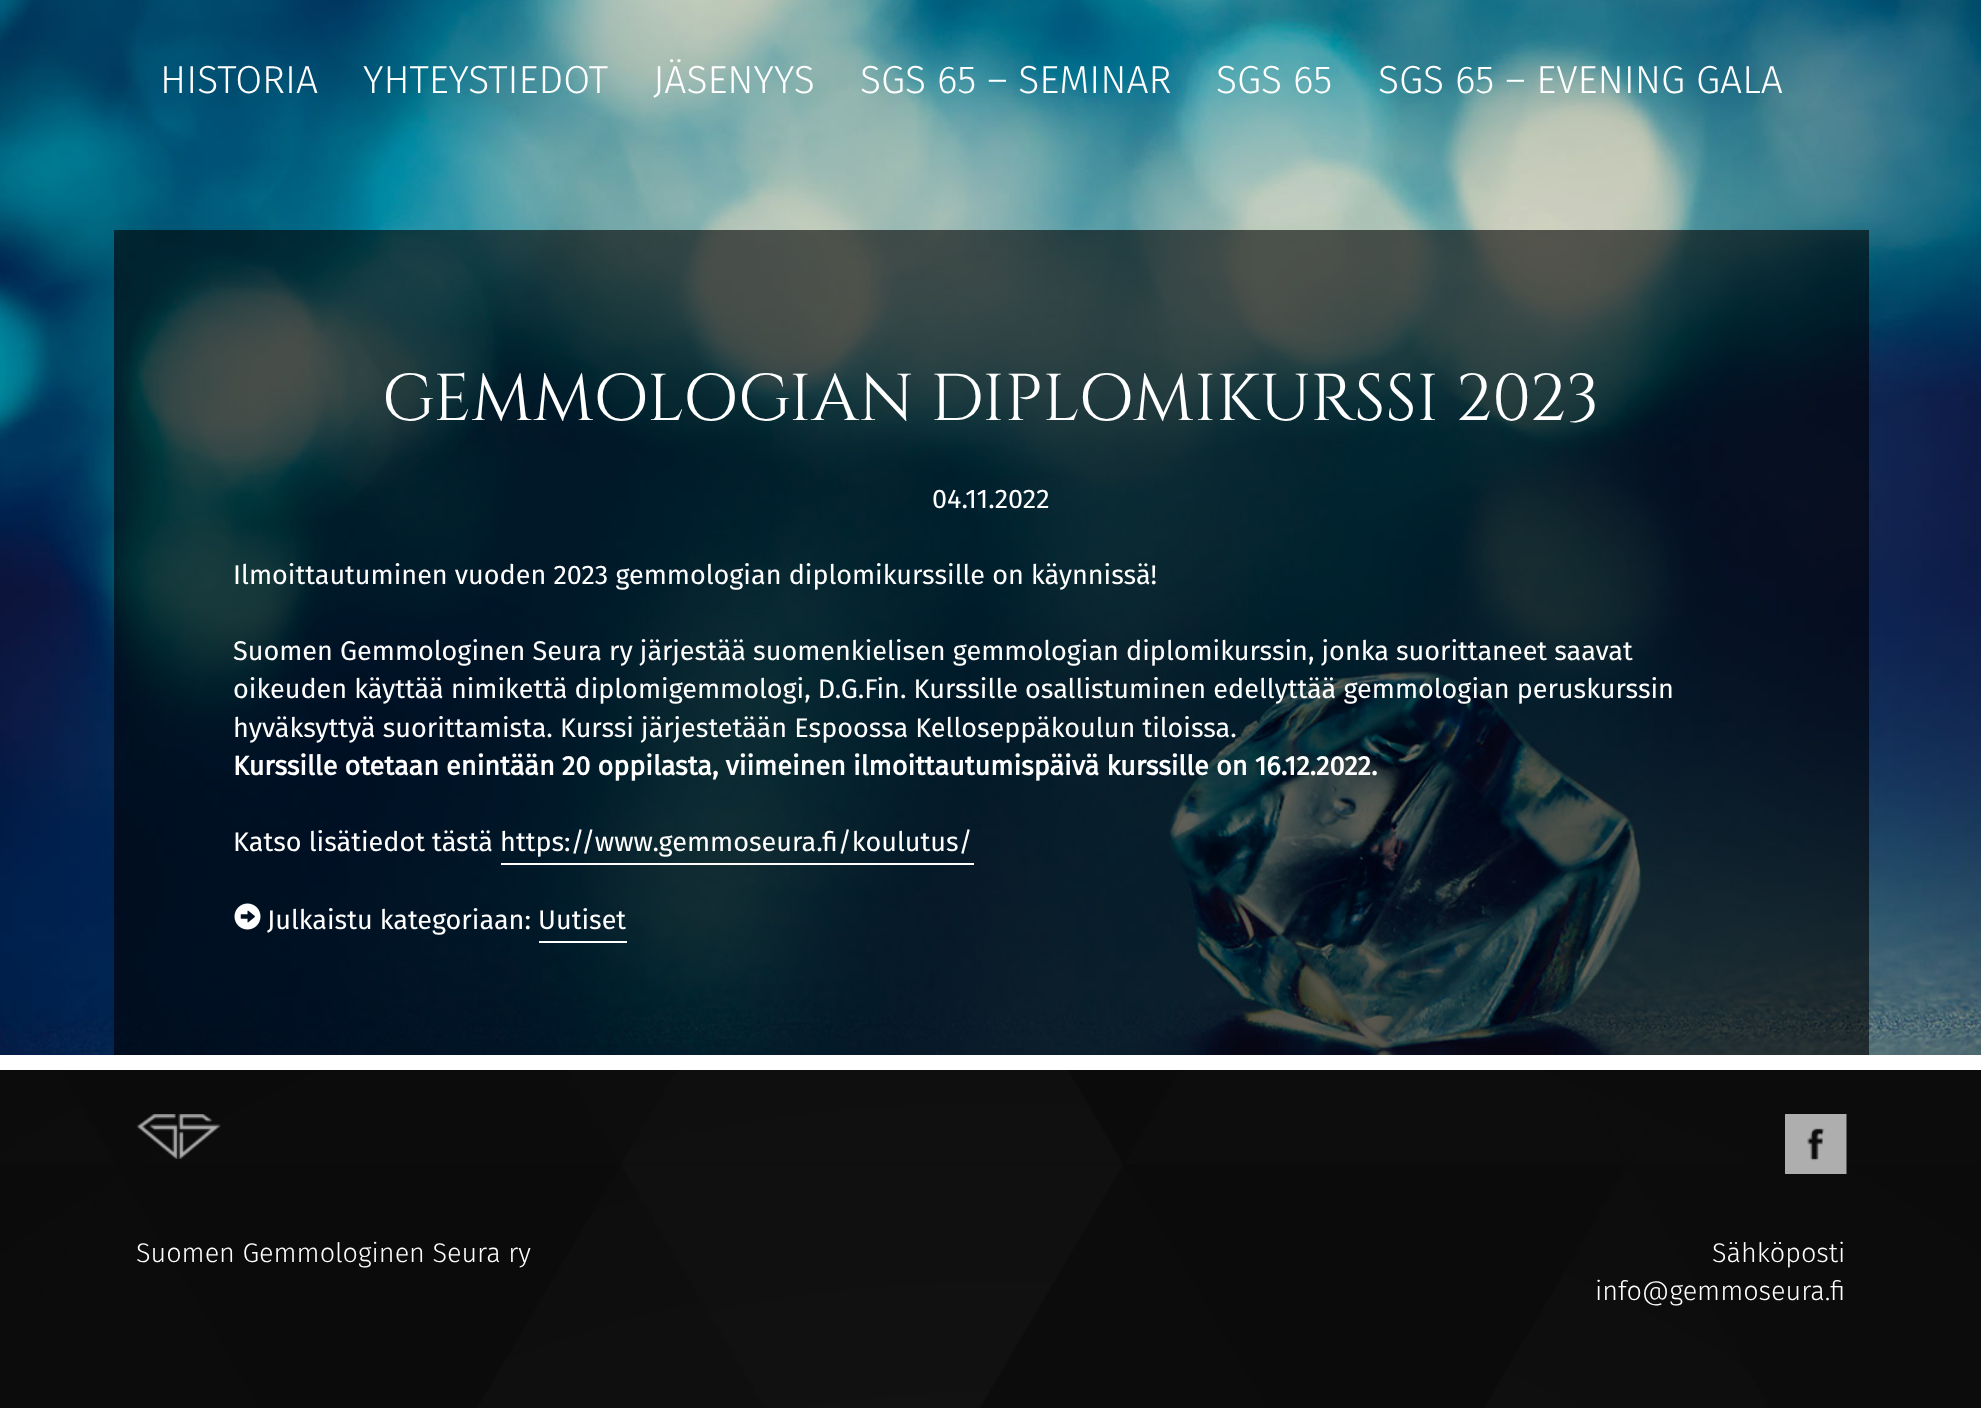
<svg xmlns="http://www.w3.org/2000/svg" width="1981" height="1408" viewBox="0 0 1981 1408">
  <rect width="100%" height="100%" fill="#fff"/>
  <image x="0" y="0" width="1981" height="1055" href="img/1.png"/>
  <path d="M114 230h1755v825H114z" fill="#00000099"/>
  <path d="M501 863h473v2H501z" fill="#fff"/>
  <image x="234" y="903" width="27" height="27" href="img/2.png"/>
  <path d="M539 941h88v2H539z" fill="#fff"/>
  <image x="0" y="1070" width="1981" height="338" href="img/3.png"/>
  <image x="136" y="1114" width="85" height="45" href="img/4.png"/>
  <image x="1785" y="1114" width="62" height="60" href="img/5.png"/>
  <g font-family="Fira Sans" font-size="39" font-weight="300" fill="#fff">
    <text x="160" y="93">HISTORIA</text>
    <text x="363" y="93">YHTEYSTIEDOT</text>
    <text x="653" y="93">JÄSENYYS</text>
    <text x="860" y="93">SGS 65 – SEMINAR</text>
    <text x="1216" y="93">SGS 65</text>
    <text x="1378" y="93">SGS 65 – EVENING GALA</text>
  </g>
  <text x="382" y="420" font-family="Cinzel" font-size="66" fill="#fff">GEMMOLOGIAN DIPLOMIKURSSI 2023</text>
  <g font-family="Fira Sans" font-size="27" fill="#fff">
    <text x="932" y="508">04.11.2022</text>
    <text x="233" y="584">Ilmoittautuminen vuoden 2023 gemmologian diplomikurssille on käynnissä!</text>
    <text x="233" y="660">Suomen Gemmologinen Seura ry järjestää suomenkielisen gemmologian diplomikurssin, jonka suorittaneet saavat</text>
    <text x="233" y="698">oikeuden käyttää nimikettä diplomigemmologi, D.G.Fin. Kurssille osallistuminen edellyttää gemmologian peruskurssin</text>
    <text x="233" y="737">hyväksyttyä suorittamista. Kurssi järjestetään Espoossa Kelloseppäkoulun tiloissa.</text>
  </g>
  <text x="233" y="775" font-family="Fira Sans" font-size="27" font-weight="bold" fill="#fff">Kurssille otetaan enintään 20 oppilasta, viimeinen ilmoittautumispäivä kurssille on 16.12.2022.</text>
  <g font-family="Fira Sans" font-size="27" fill="#fff">
    <text x="233" y="851">Katso lisätiedot tästä https://www.gemmoseura.fi/koulutus/</text>
    <text x="267" y="929">Julkaistu kategoriaan: Uutiset</text>
  </g>
  <g font-family="Fira Sans" font-size="27" font-weight="300" fill="#fff">
    <text x="136" y="1262">Suomen Gemmologinen Seura ry</text>
    <text x="1712" y="1262">Sähköposti</text>
    <text x="1595" y="1300">info@gemmoseura.fi</text>
  </g>
</svg>
